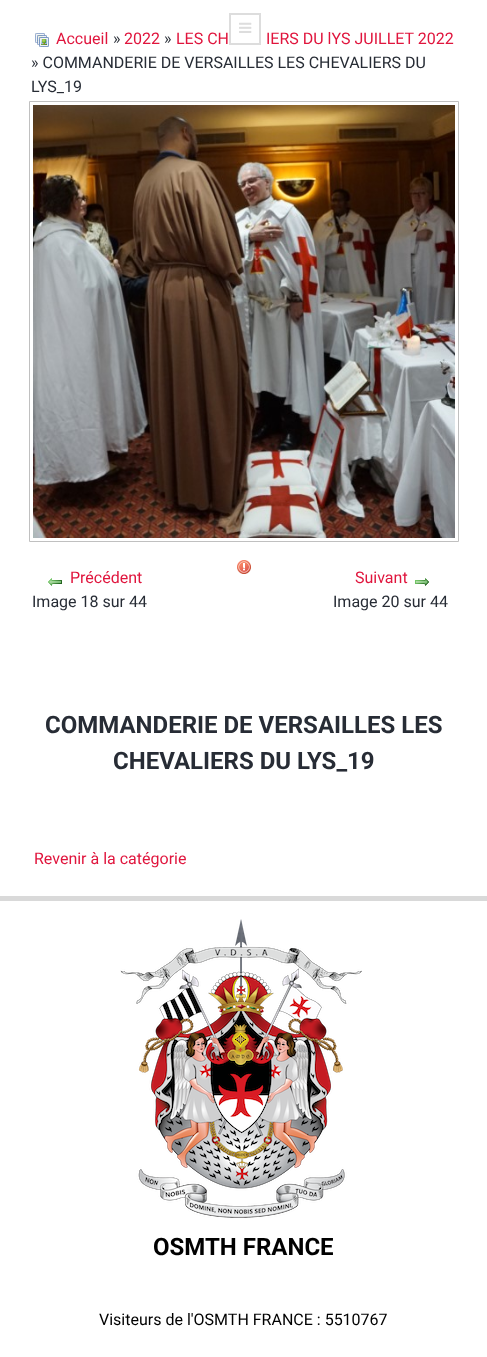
<svg xmlns="http://www.w3.org/2000/svg" width="487" height="1357" viewBox="0 0 487 1357">
  <rect width="100%" height="100%" fill="#fff"/>
  <path d="M230 14h30v30H230z" fill="none" stroke="#ddd" stroke-width="2"/>
  <image x="239" y="22" width="13" height="11" href="img/1.png"/>
  <image x="35" y="33" width="14" height="14" href="img/2.png"/>
  <path d="M29.5 101.5h429v440H29.5z" fill="none" stroke="#c0c0c0"/>
  <image x="33" y="105" width="422" height="433" href="img/3.png"/>
  <image x="237" y="560" width="14" height="14" href="img/4.png"/>
  <image x="48" y="578" width="14" height="8" href="img/5.png"/>
  <image x="415" y="578" width="14" height="8" href="img/6.png"/>
  <path d="M0 896h487v5H0z" fill="#d9d9d9"/>
  <image x="120" y="919" width="242" height="299" href="img/7.png"/>
  <text x="56" y="44" font-family="Roboto" font-size="16" fill="#e0153d">Accueil</text>
  <text x="113" y="44" font-family="Roboto" font-size="16" fill="#272c35">»</text>
  <text x="124" y="44" font-family="Roboto" font-size="16" fill="#e0153d">2022</text>
  <text x="164" y="44" font-family="Roboto" font-size="16" fill="#272c35">»</text>
  <g font-family="Roboto" font-size="16" fill="#e0153d">
    <text x="176" y="44">LES CH</text>
    <text x="266" y="44">IERS DU lYS JUILLET 2022</text>
  </g>
  <g font-family="Roboto" font-size="16" fill="#272c35">
    <text x="31" y="68">» COMMANDERIE DE VERSAILLES LES CHEVALIERS DU</text>
    <text x="31" y="92">LYS_19</text>
  </g>
  <text x="70" y="583" font-family="Roboto" font-size="16" fill="#e0153d">Précédent</text>
  <text x="32" y="607" font-family="Roboto" font-size="16" fill="#272c35">Image 18 sur 44</text>
  <text x="355" y="583" font-family="Roboto" font-size="16" fill="#e0153d">Suivant</text>
  <text x="333" y="607" font-family="Roboto" font-size="16" fill="#272c35">Image 20 sur 44</text>
  <g font-family="Roboto" font-size="24" font-weight="bold" fill="#272c35">
    <text x="45" y="733">COMMANDERIE DE VERSAILLES LES</text>
    <text x="113" y="769">CHEVALIERS DU LYS_19</text>
  </g>
  <text x="34" y="864" font-family="Roboto" font-size="16" fill="#e0153d">Revenir à la catégorie</text>
  <text x="153" y="1255" font-family="Roboto" font-size="24" font-weight="bold" fill="#000">OSMTH FRANCE</text>
  <text x="99" y="1325" font-family="Roboto" font-size="16" fill="#000">Visiteurs de l'OSMTH FRANCE : 5510767</text>
</svg>
